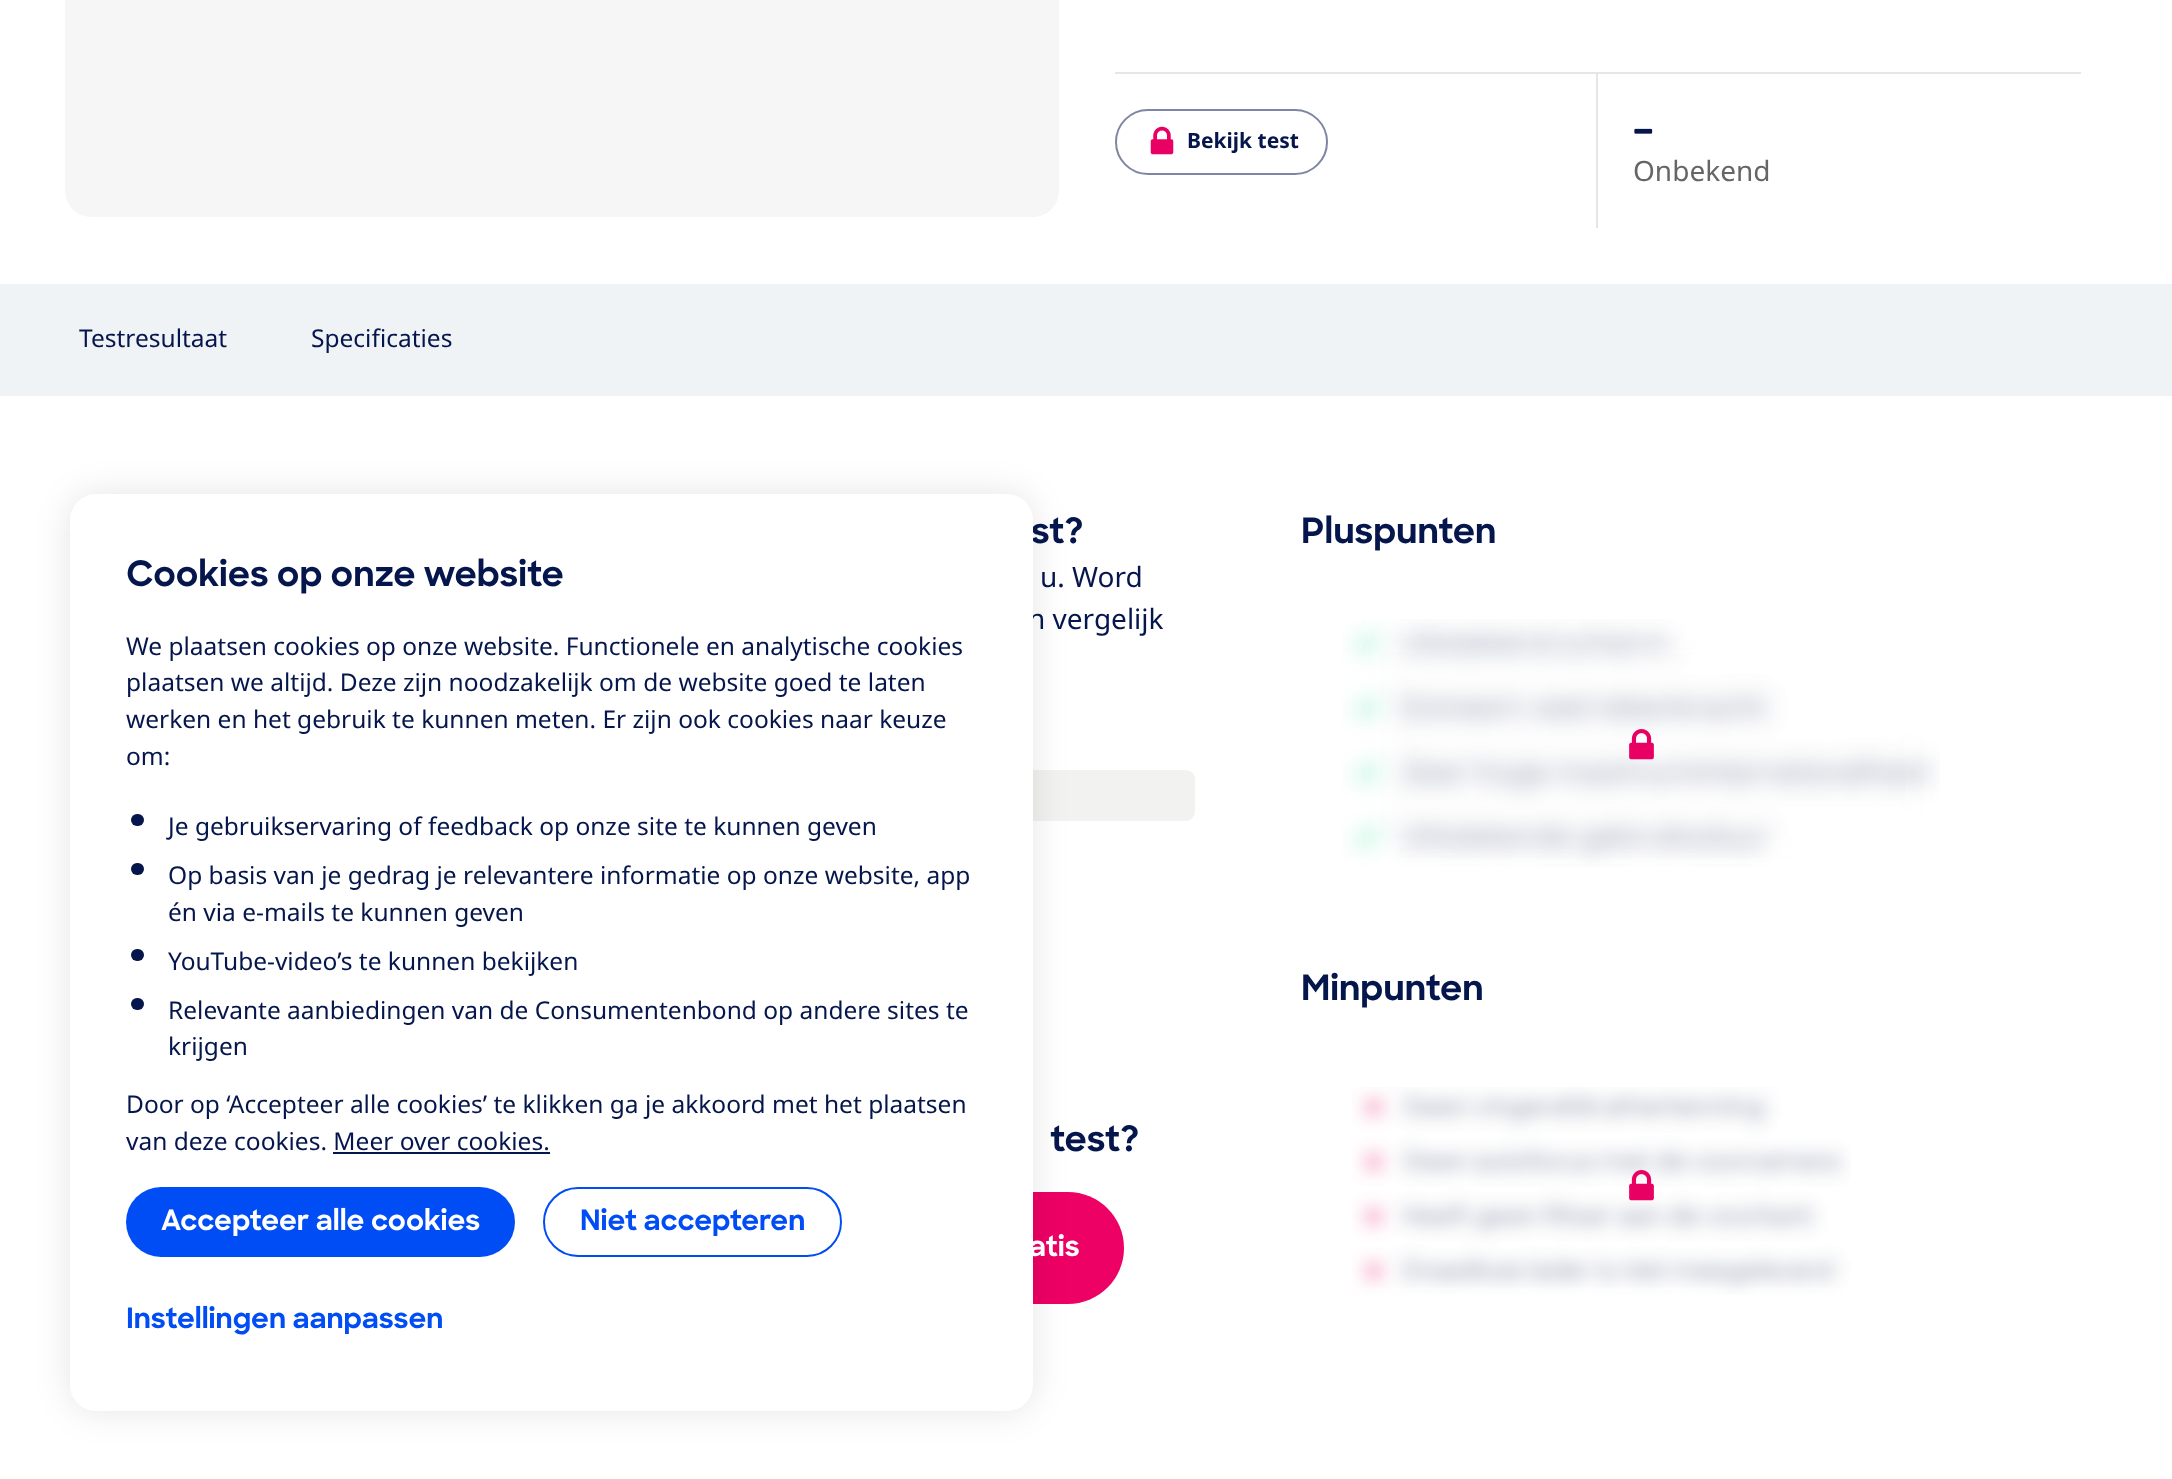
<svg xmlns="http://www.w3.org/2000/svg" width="2172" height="1479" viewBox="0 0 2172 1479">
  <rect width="100%" height="100%" fill="#fff"/>
  <rect x="65" y="-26" width="994" height="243" rx="26" fill="#f6f6f6"/>
  <path d="M1115 72h966v2H1115z" fill="#e6e6e6"/>
  <path d="M1596 72h2v156H1596z" fill="#e6e6e6"/>
  <rect x="1116" y="110" width="211" height="64" rx="32" fill="none" stroke="#7d86a2" stroke-width="2"/>
  <image x="1150" y="126" width="24" height="29" href="img/1.png"/>
  <image x="1634" y="128" width="19" height="6" href="img/2.png"/>
  <path d="M0 284h2172v112H0z" fill="#f0f3f5"/>
  <rect x="604" y="770" width="591" height="51" rx="9" fill="#f2f2f0"/>
  <rect x="677" y="1192" width="447" height="112" rx="56" fill="#ed0164"/>
  <image x="1342" y="619" width="598" height="248" href="img/3.png"/>
  <image x="1629" y="729" width="25" height="31" href="img/4.png"/>
  <image x="1352" y="1087" width="499" height="208" href="img/5.png"/>
  <image x="1629" y="1170" width="25" height="31" href="img/6.png"/>
  <rect x="70" y="494" width="963" height="917" rx="26" fill="#0000001a" filter="blur(17.5px)"/>
  <text x="1187" y="148" font-family="Noto Sans" font-size="21" font-weight="bold" fill="#05164c">Bekijk test</text>
  <text x="1633" y="181" font-family="Noto Sans" font-size="28" fill="#666">Onbekend</text>
  <g font-family="Noto Sans" font-size="24.5" fill="#05164c">
    <text x="79" y="347">Testresultaat</text>
    <text x="311" y="347">Specificaties</text>
  </g>
  <text x="1031" y="543" font-family="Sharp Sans" font-size="35" font-weight="bold" fill="#05164c">st?</text>
  <g font-family="Noto Sans" font-size="28" fill="#05164c">
    <text x="1040" y="587">u. Word</text>
    <text x="1028" y="629">n vergelijk</text>
  </g>
  <text x="1050" y="1151" font-family="Sharp Sans" font-size="35" font-weight="bold" fill="#05164c">test?</text>
  <text x="1029" y="1256" font-family="Sharp Sans" font-size="28" font-weight="bold" fill="#fff">atis</text>
  <g font-family="Sharp Sans" font-size="35" font-weight="bold" fill="#05164c">
    <text x="1301" y="543">Pluspunten</text>
    <text x="1301" y="1000">Minpunten</text>
  </g>
  <rect x="70" y="494" width="963" height="917" rx="26" fill="#fff"/>
  <text x="126" y="586" font-family="Sharp Sans" font-size="35" font-weight="bold" fill="#05164c">Cookies op onze website</text>
  <g font-family="Noto Sans" font-size="24.5" fill="#05164c">
    <text x="126" y="655">We plaatsen cookies op onze website. Functionele en analytische cookies</text>
    <text x="126" y="691">plaatsen we altijd. Deze zijn noodzakelijk om de website goed te laten</text>
    <text x="126" y="728">werken en het gebruik te kunnen meten. Er zijn ook cookies naar keuze</text>
    <text x="126" y="765">om:</text>
  </g>
  <rect x="131" y="814" width="13" height="12" rx="6" fill="#05164c"/>
  <text x="168" y="835" font-family="Noto Sans" font-size="24.5" fill="#05164c">Je gebruikservaring of feedback op onze site te kunnen geven</text>
  <rect x="131" y="863" width="13" height="12" rx="6" fill="#05164c"/>
  <g font-family="Noto Sans" font-size="24.5" fill="#05164c">
    <text x="168" y="884">Op basis van je gedrag je relevantere informatie op onze website, app</text>
    <text x="168" y="921">én via e-mails te kunnen geven</text>
  </g>
  <rect x="131" y="949" width="13" height="12" rx="6" fill="#05164c"/>
  <text x="168" y="970" font-family="Noto Sans" font-size="24.5" fill="#05164c">YouTube-video’s te kunnen bekijken</text>
  <rect x="131" y="998" width="13" height="12" rx="6" fill="#05164c"/>
  <g font-family="Noto Sans" font-size="24.5" fill="#05164c">
    <text x="168" y="1019">Relevante aanbiedingen van de Consumentenbond op andere sites te</text>
    <text x="168" y="1055">krijgen</text>
    <text x="126" y="1113">Door op ‘Accepteer alle cookies’ te klikken ga je akkoord met het plaatsen</text>
    <text x="126" y="1150">van deze cookies. Meer over cookies.</text>
  </g>
  <path d="M333 1152h217v2H333z" fill="#05164c"/>
  <rect x="126" y="1187" width="389" height="70" rx="35" fill="#004df5"/>
  <text x="161" y="1230" font-family="Sharp Sans" font-size="28" font-weight="bold" fill="#fff">Accepteer alle cookies</text>
  <rect x="544" y="1188" width="297" height="68" rx="34" fill="none" stroke="#004df5" stroke-width="2"/>
  <g font-family="Sharp Sans" font-size="28" font-weight="bold" fill="#004df5">
    <text x="580" y="1230">Niet accepteren</text>
    <text x="126" y="1328">Instellingen aanpassen</text>
  </g>
</svg>
